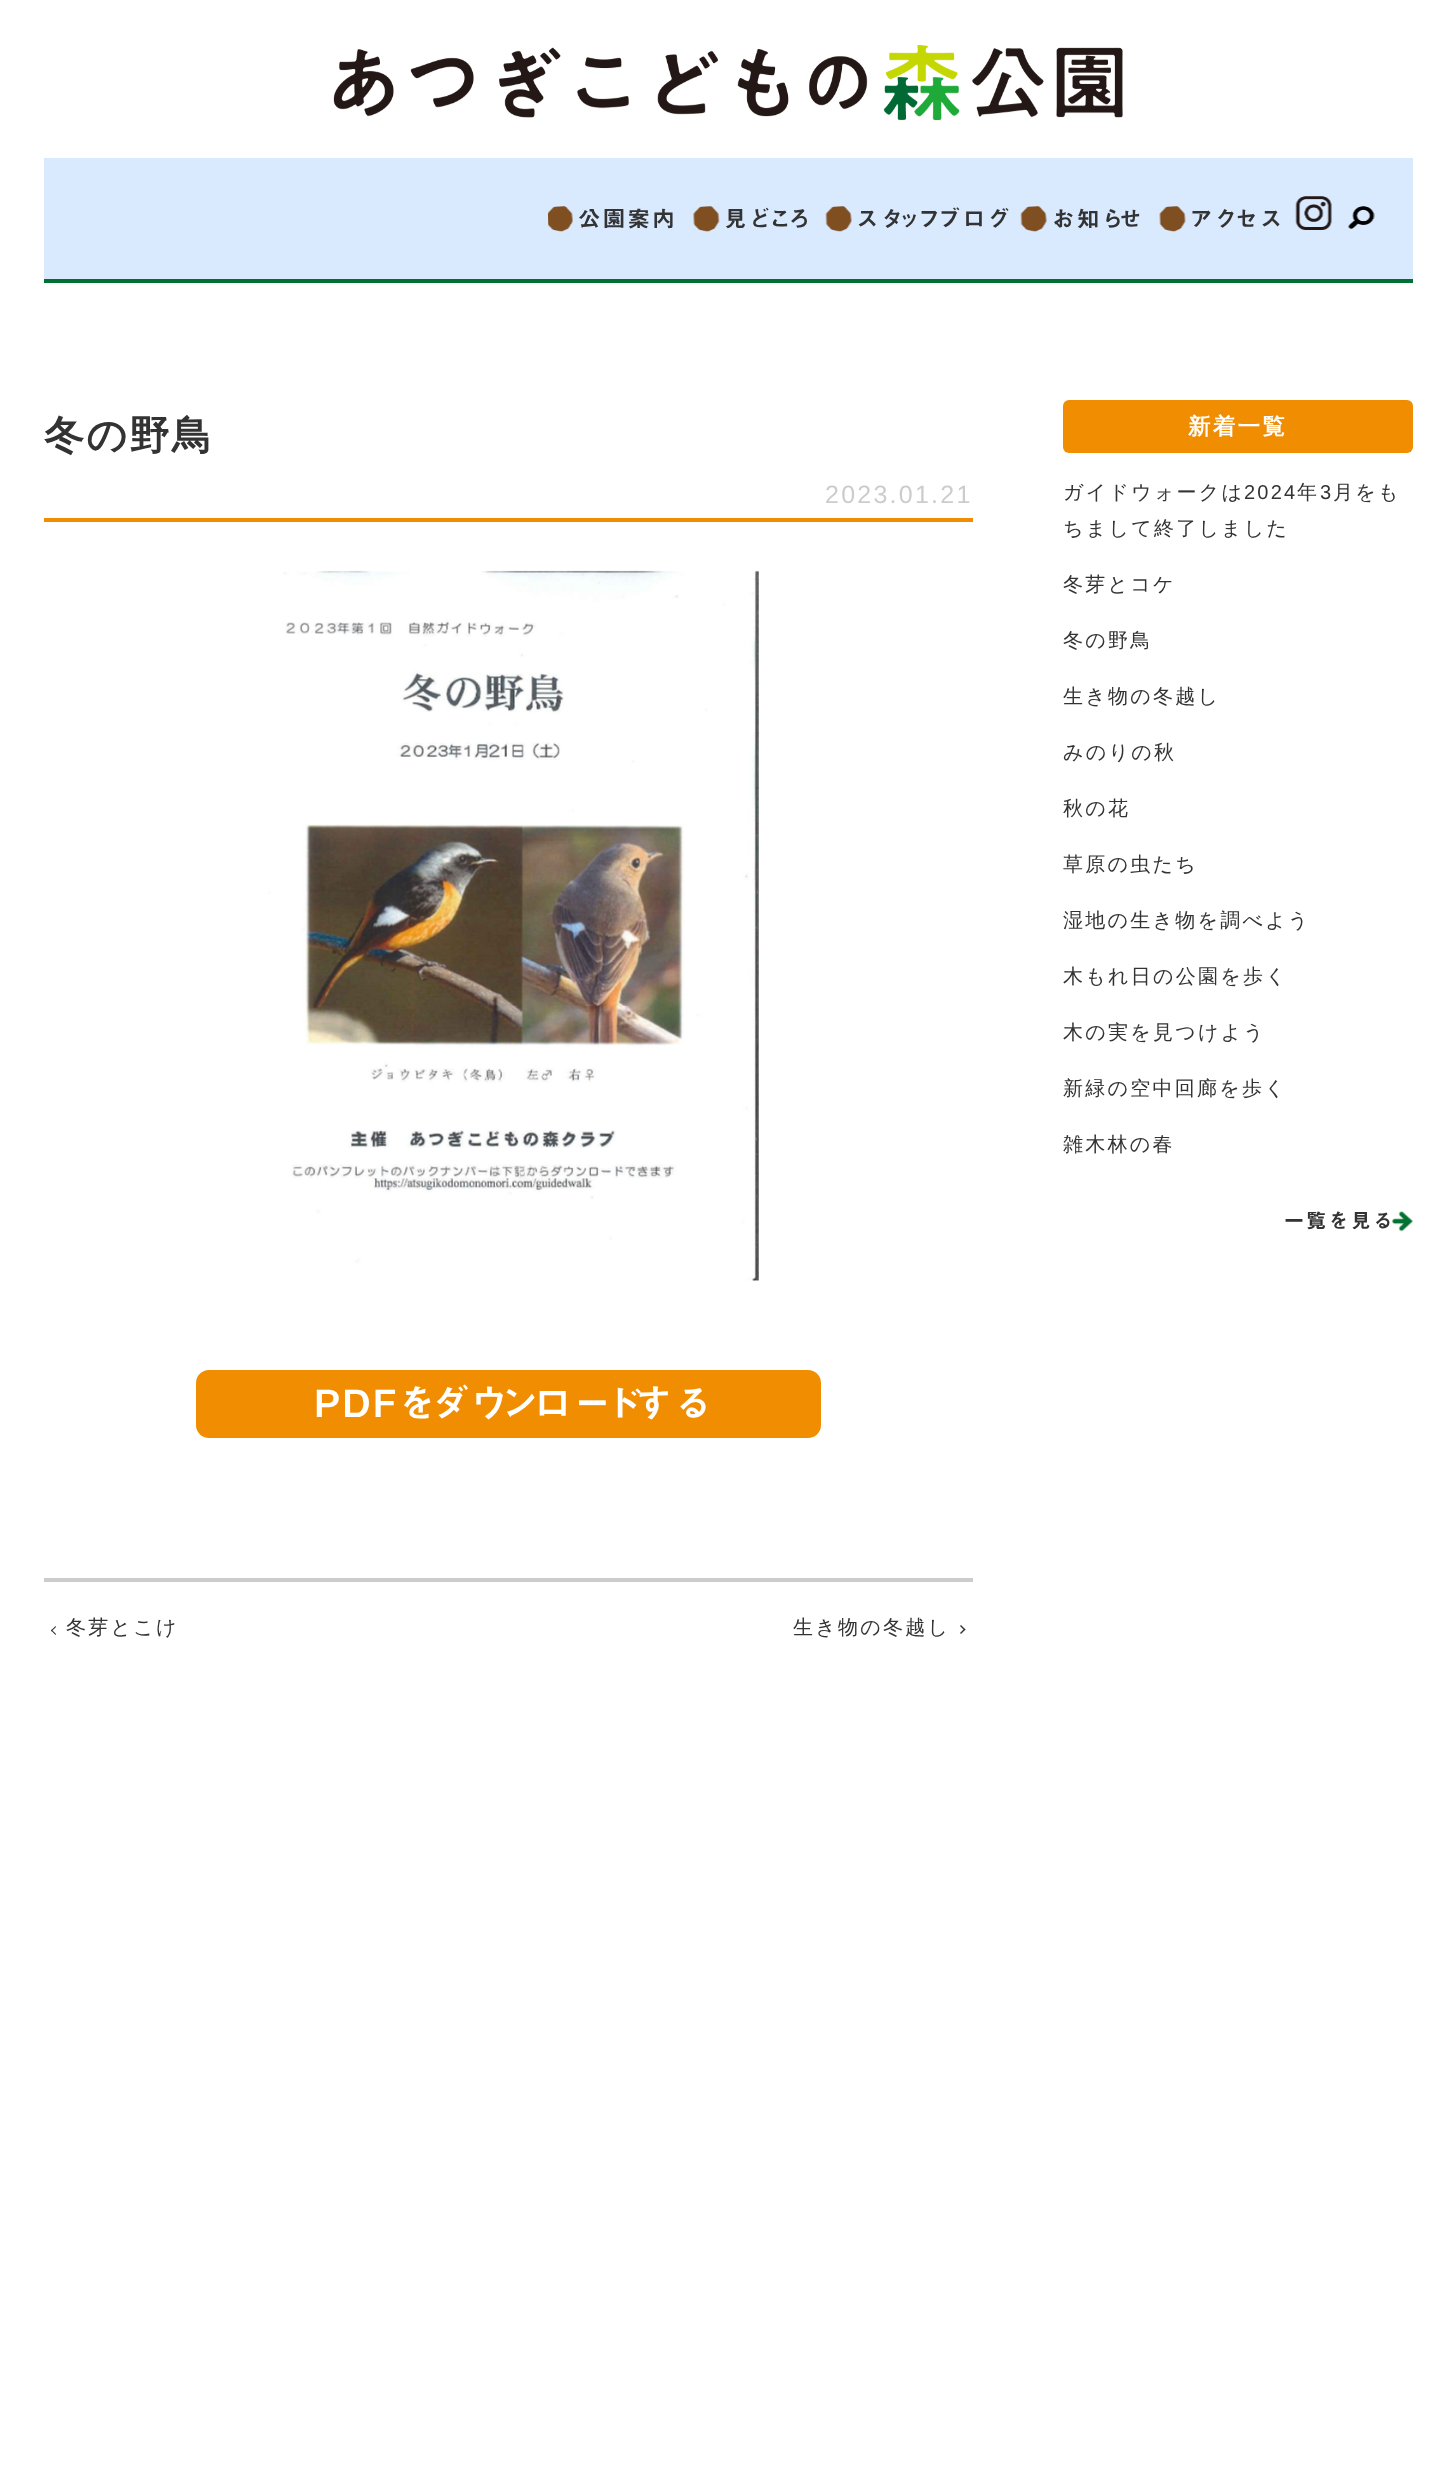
<svg xmlns="http://www.w3.org/2000/svg" width="1456" height="2477" viewBox="0 0 1456 2477">
  <rect width="100%" height="100%" fill="#fff"/>
  <image x="333" y="45" width="790" height="76" href="img/1.png"/>
  <path d="M44 158h1369v121H44z" fill="#d9e9fe"/>
  <path d="M44 279h1369v4H44z" fill="#007130"/>
  <image x="548" y="206" width="25" height="26" href="img/2.png"/>
  <image x="693" y="206" width="27" height="26" href="img/3.png"/>
  <image x="825" y="206" width="27" height="26" href="img/4.png"/>
  <image x="1020" y="206" width="27" height="26" href="img/4.png"/>
  <image x="1159" y="206" width="27" height="26" href="img/5.png"/>
  <image x="1295" y="196" width="37" height="34" href="img/6.png"/>
  <image x="1348" y="206" width="27" height="23" href="img/7.png"/>
  <path d="M44 518h929v4H44z" fill="#f18d00"/>
  <image x="268" y="570" width="491" height="711" href="img/8.png"/>
  <rect x="196" y="1370" width="625" height="68" rx="13" fill="#f18d00"/>
  <path d="M44 1578h929v4H44z" fill="#ccc"/>
  <path d="M56 1634L55.5 1635L51 1630.5L51.5 1629.5Z" fill="#333"/>
  <path d="M56 1627L51.5 1631.5L51 1630.5L55.5 1626Z" fill="#333"/>
  <path d="M960 1626L961 1625L965.5 1629.5L964.5 1630.5Z" fill="#333"/>
  <path d="M960 1633L964.5 1628.5L965.5 1629.5L961 1634Z" fill="#333"/>
  <rect x="1063" y="400" width="350" height="53" rx="6" fill="#f18d00"/>
  <image x="1392" y="1211" width="21" height="21" href="img/9.png"/>
  <g font-family="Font" font-size="22.5" font-weight="600" letter-spacing="2.25" fill="#333">
    <text x="578" y="227">公園案内</text>
    <text x="724" y="227">見ど</text>
    <text x="769" y="227">こ</text>
    <text x="788" y="227">ろ</text>
    <text x="856" y="227">スタ</text>
    <text x="898" y="227">ッ</text>
    <text x="918" y="227">フ</text>
    <text x="938" y="227">ブログ</text>
    <text x="1052" y="227">お知ら</text>
    <text x="1119" y="227">せ</text>
    <text x="1190" y="227">アク</text>
    <text x="1235" y="227">セス</text>
  </g>
  <text x="44" y="449" font-family="WenQuanYi Zen Hei" font-size="40" font-weight="bold" letter-spacing="2.25" fill="#333">冬の野鳥</text>
  <text x="825" y="503" font-family="Liberation Sans" font-size="25" letter-spacing="2.25" fill="#ccc">2023.01.21</text>
  <text x="314" y="1417" font-family="Font" font-size="37.5" font-weight="600" letter-spacing="2.25" fill="#fff">PDFを</text>
  <text x="431" y="1417" font-family="Font" font-size="37.5" font-weight="600" letter-spacing="2.25" fill="#fff">ダウ</text>
  <text x="501" y="1417" font-family="Font" font-size="37.5" font-weight="600" letter-spacing="2.25" fill="#fff">ン</text>
  <text x="534" y="1417" font-family="Font" font-size="37.5" font-weight="600" letter-spacing="2.25" fill="#fff">ロー</text>
  <text x="604" y="1417" font-family="Font" font-size="37.5" font-weight="600" letter-spacing="2.25" fill="#fff">ド</text>
  <text x="635" y="1417" font-family="Font" font-size="37.5" font-weight="600" letter-spacing="2.25" fill="#fff">する</text>
  <g font-family="WenQuanYi Zen Hei" font-size="20" font-weight="500" letter-spacing="2.25" fill="#333">
    <text x="66" y="1634">冬芽とこけ</text>
    <text x="793" y="1634">生き物の冬越し</text>
  </g>
  <text x="1188" y="434" font-family="WenQuanYi Zen Hei" font-size="22.5" font-weight="bold" letter-spacing="2.25" fill="#fff">新着一覧</text>
  <text x="1063" y="499" font-family="WenQuanYi Zen Hei" font-size="20" font-weight="500" letter-spacing="2.25" fill="#333">ガイドウォークは</text>
  <text x="1244" y="499" font-family="Liberation Sans" font-size="20" letter-spacing="2.25" fill="#333">2024</text>
  <text x="1297" y="499" font-family="WenQuanYi Zen Hei" font-size="20" font-weight="500" letter-spacing="2.25" fill="#333">年</text>
  <text x="1320" y="499" font-family="Liberation Sans" font-size="20" letter-spacing="2.25" fill="#333">3</text>
  <g font-family="WenQuanYi Zen Hei" font-size="20" font-weight="500" letter-spacing="2.25" fill="#333">
    <text x="1333" y="499">月をも</text>
    <text x="1063" y="535">ちまして終了しました</text>
    <text x="1063" y="591">冬芽とコケ</text>
    <text x="1063" y="647">冬の野鳥</text>
    <text x="1063" y="703">生き物の冬越し</text>
    <text x="1063" y="759">みのりの秋</text>
    <text x="1063" y="815">秋の花</text>
    <text x="1063" y="871">草原の虫たち</text>
    <text x="1063" y="927">湿地の生き物を調べよう</text>
    <text x="1063" y="983">木もれ日の公園を歩く</text>
    <text x="1063" y="1039">木の実を見つけよう</text>
    <text x="1063" y="1095">新緑の空中回廊を歩く</text>
    <text x="1063" y="1151">雑木林の春</text>
  </g>
  <text x="1284" y="1228" font-family="Font" font-size="20" font-weight="600" letter-spacing="2.25" fill="#333">一覧を見る</text>
</svg>
